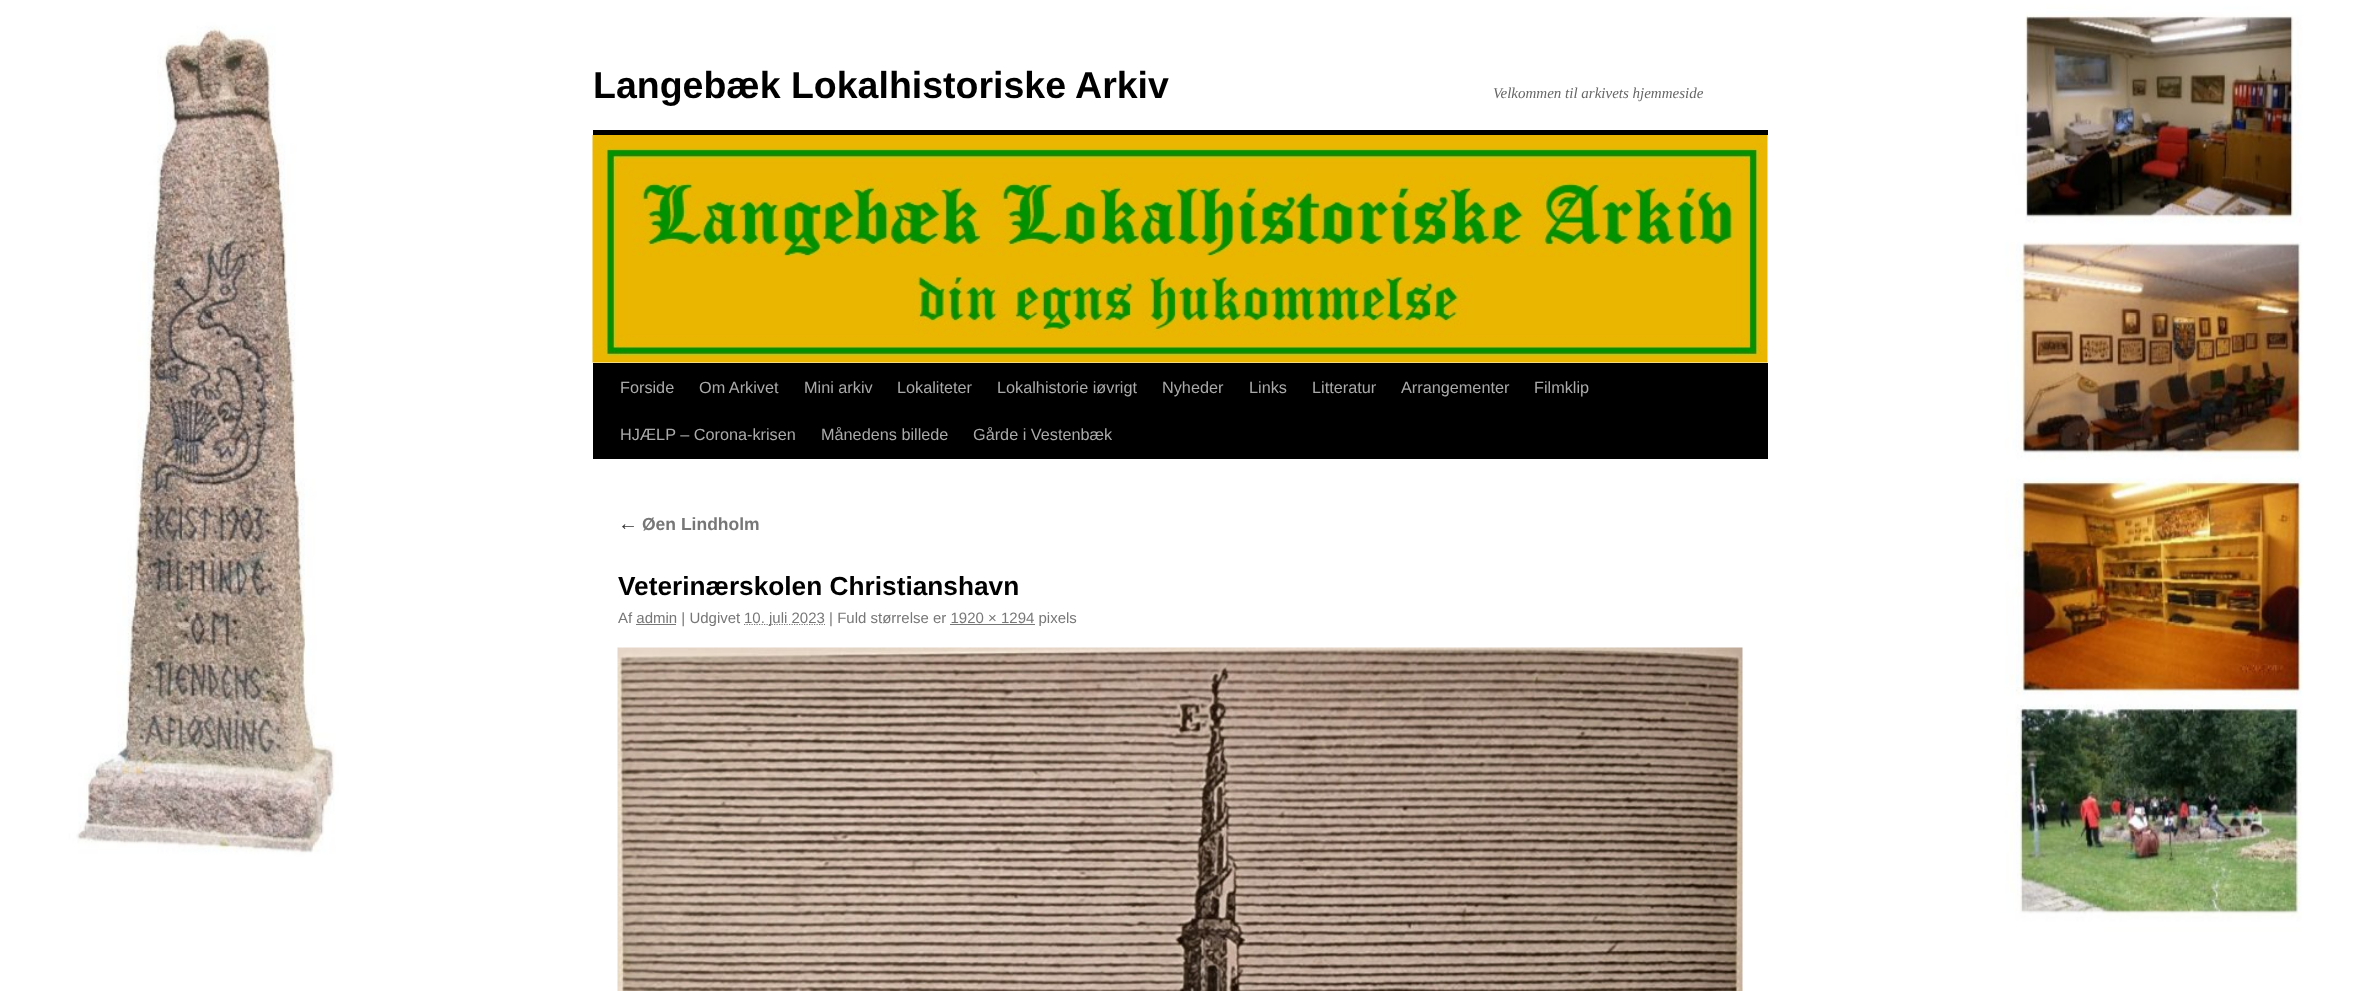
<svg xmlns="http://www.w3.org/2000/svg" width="2360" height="991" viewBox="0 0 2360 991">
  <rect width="100%" height="100%" fill="#fff"/>
  <image x="0" y="0" width="2360" height="991" href="img/1.png"/>
  <path d="M593 130h1175v5H593z" fill="#000"/>
  <path d="M593 363h1175v96H593z" fill="#000"/>
  <image x="592" y="135" width="1176" height="228" href="img/2.png"/>
  <path d="M744 624.5H825" fill="none" stroke="#777" stroke-width="1.2" stroke-dasharray="1.25 1.25"/>
  <path d="M636 624h40v1H636z" fill="#777"/>
  <path d="M950 624h85v1H950z" fill="#777"/>
  <image x="617" y="647" width="1126" height="344" href="img/3.png"/>
  <text x="593" y="98" font-family="Liberation Sans" font-size="37.5" font-weight="bold" fill="#000">Langebæk Lokalhistoriske Arkiv</text>
  <text x="1493" y="98" font-family="Liberation Serif" font-size="15" font-style="italic" fill="#666">Velkommen til arkivets hjemmeside</text>
  <g font-family="Liberation Sans" font-size="16.25" fill="#aaa">
    <text x="620" y="393">Forside</text>
    <text x="699" y="393">Om Arkivet</text>
    <text x="804" y="393">Mini arkiv</text>
    <text x="897" y="393">Lokaliteter</text>
    <text x="997" y="393">Lokalhistorie iøvrigt</text>
    <text x="1162" y="393">Nyheder</text>
    <text x="1249" y="393">Links</text>
    <text x="1312" y="393">Litteratur</text>
    <text x="1401" y="393">Arrangementer</text>
    <text x="1534" y="393">Filmklip</text>
    <text x="620" y="440">HJÆLP – Corona-krisen</text>
    <text x="821" y="440">Månedens billede</text>
    <text x="973" y="440">Gårde i Vestenbæk</text>
  </g>
  <text x="618" y="530" font-family="Liberation Serif" font-size="20" font-style="italic" fill="#333">←</text>
  <text x="642" y="530" font-family="Liberation Sans" font-size="17.5" font-weight="bold" fill="#777">Øen Lindholm</text>
  <text x="618" y="595" font-family="Liberation Sans" font-size="26.25" font-weight="bold" fill="#000">Veterinærskolen Christianshavn</text>
  <g font-family="Liberation Sans" font-size="15" fill="#777">
    <text x="618" y="623">Af admin | Udgivet</text>
    <text x="744" y="623">10. juli 2023 | Fuld størrelse er 1920 × 1294 pixels</text>
  </g>
</svg>
